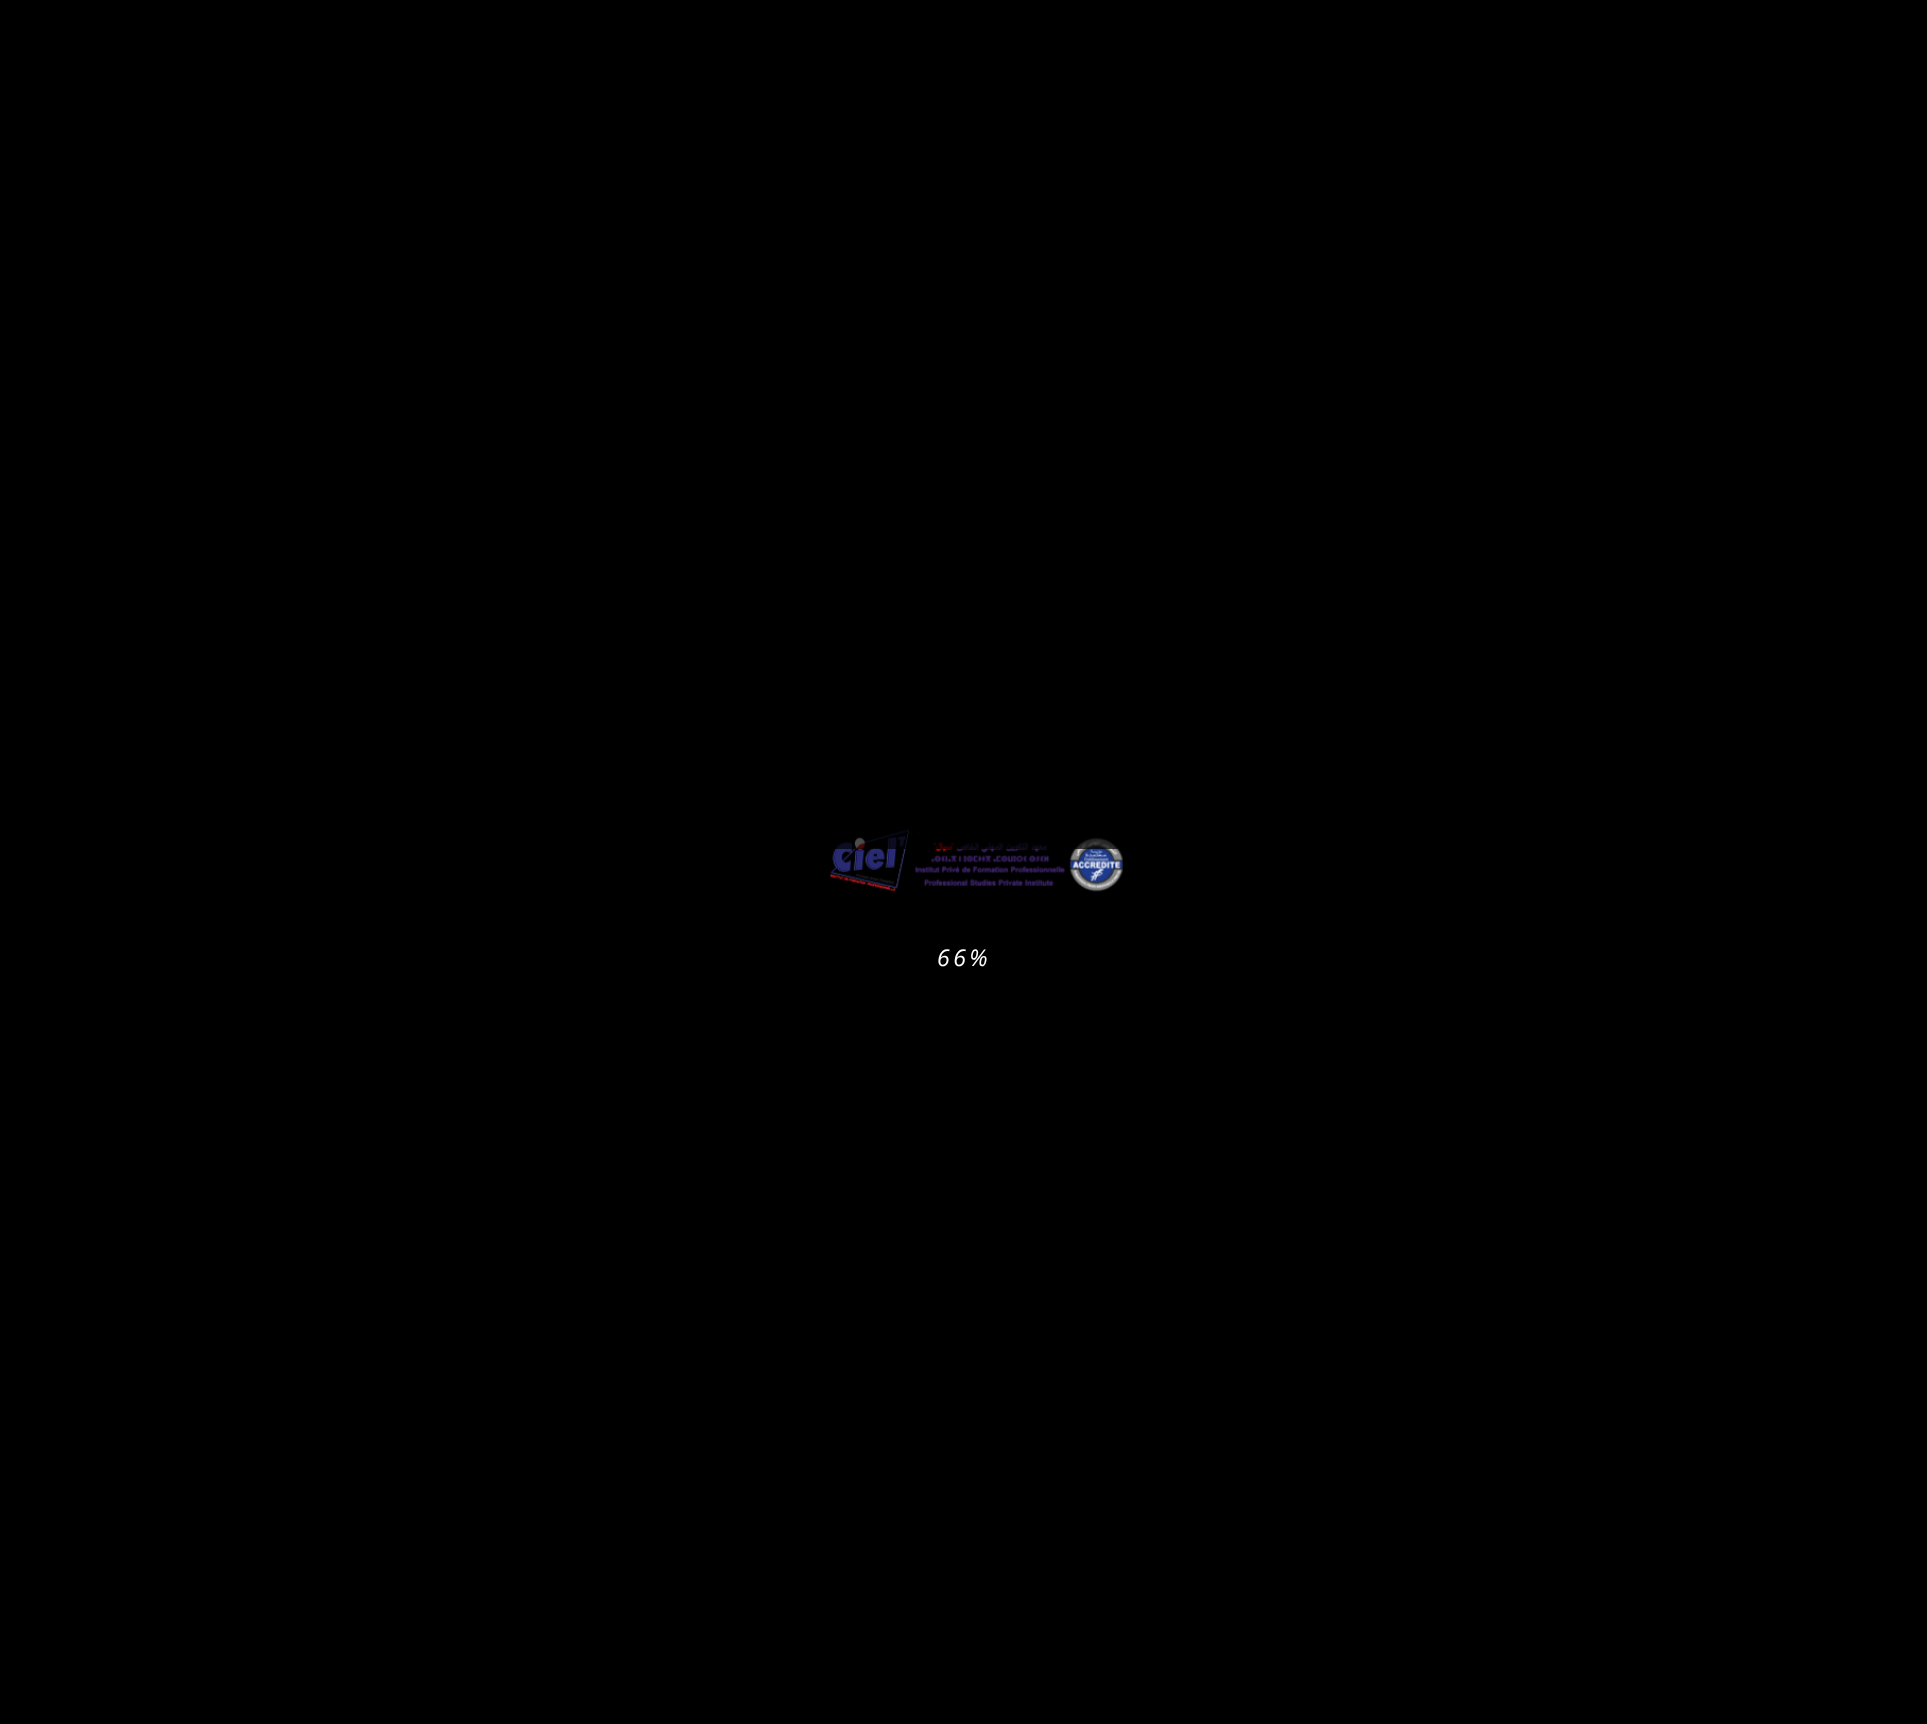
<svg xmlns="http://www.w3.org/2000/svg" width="1927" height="1724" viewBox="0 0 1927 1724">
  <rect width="100%" height="100%" fill="#000"/>
  <image x="830" y="828" width="293" height="64" href="img/1.png"/>
  <path d="M814 821H1115C1120 821 1124 825 1124 830V849H805V830C805 825 809 821 814 821Z" fill="#000000b3"/>
  <text x="937" y="966" font-family="Open Sans" font-size="23" font-style="italic" letter-spacing="3.5" fill="#fff">66%</text>
</svg>
